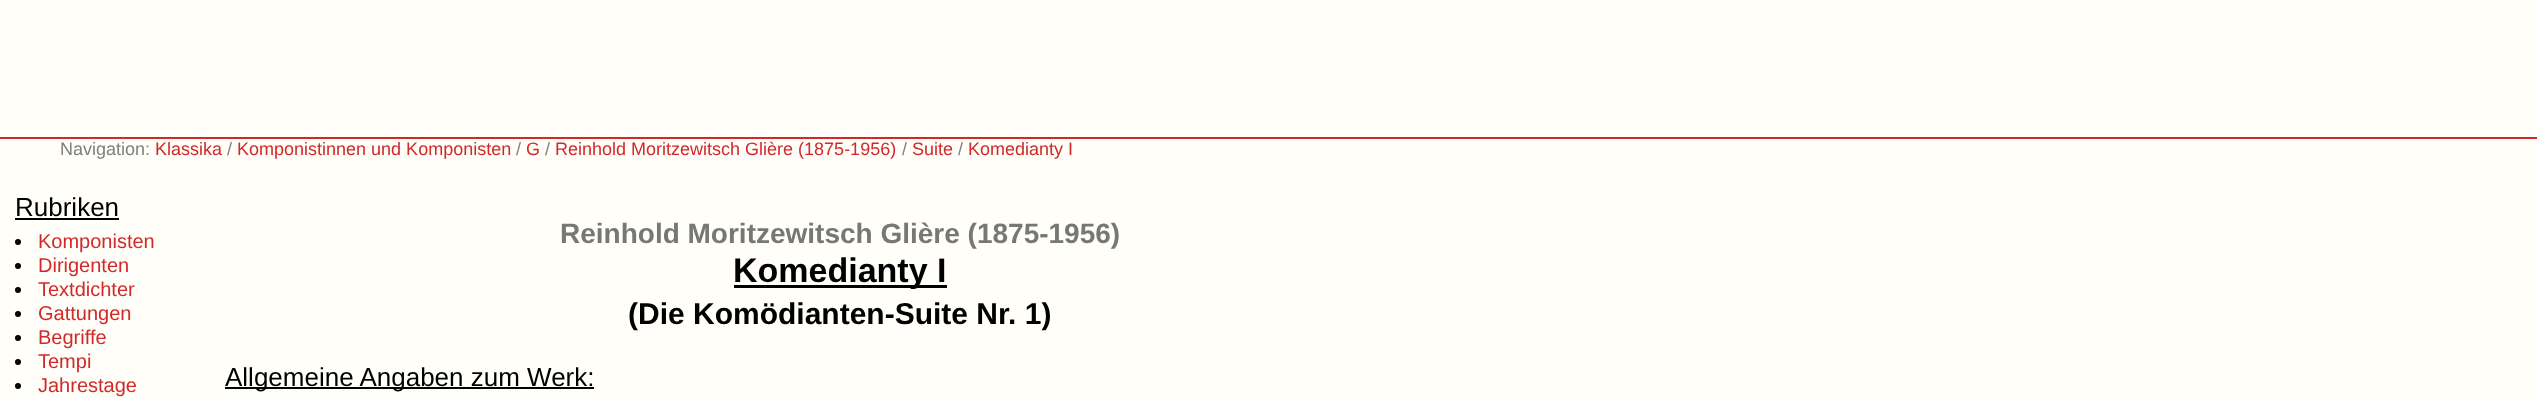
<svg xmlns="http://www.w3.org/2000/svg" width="2537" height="398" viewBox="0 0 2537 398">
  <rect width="100%" height="100%" fill="#fffef9"/>
  <path d="M0 137h2537v2H0z" fill="#d12929"/>
  <path d="M15 218h104v2H15z" fill="#000"/>
  <circle cx="18" cy="242" r="3" fill="#000"/>
  <circle cx="18" cy="266" r="3" fill="#000"/>
  <circle cx="18" cy="290" r="3" fill="#000"/>
  <circle cx="18" cy="314" r="3" fill="#000"/>
  <circle cx="18" cy="338" r="3" fill="#000"/>
  <circle cx="18" cy="362" r="3" fill="#000"/>
  <circle cx="18" cy="386" r="3" fill="#000"/>
  <path d="M734 285h213v3H734z" fill="#000"/>
  <path d="M225 387h369v2H225z" fill="#000"/>
  <text x="60" y="155" font-family="Liberation Sans" font-size="18" fill="#808080">Navigation:</text>
  <text x="155" y="155" font-family="Liberation Sans" font-size="18" fill="#d12929">Klassika</text>
  <text x="227" y="155" font-family="Liberation Sans" font-size="18" fill="#808080">/</text>
  <text x="237" y="155" font-family="Liberation Sans" font-size="18" fill="#d12929">Komponistinnen und Komponisten</text>
  <text x="516" y="155" font-family="Liberation Sans" font-size="18" fill="#808080">/</text>
  <text x="526" y="155" font-family="Liberation Sans" font-size="18" fill="#d12929">G</text>
  <text x="545" y="155" font-family="Liberation Sans" font-size="18" fill="#808080">/</text>
  <text x="555" y="155" font-family="Liberation Sans" font-size="18" fill="#d12929">Reinhold Moritzewitsch Glière (1875-1956)</text>
  <text x="902" y="155" font-family="Liberation Sans" font-size="18" fill="#808080">/</text>
  <text x="912" y="155" font-family="Liberation Sans" font-size="18" fill="#d12929">Suite</text>
  <text x="958" y="155" font-family="Liberation Sans" font-size="18" fill="#808080">/</text>
  <text x="968" y="155" font-family="Liberation Sans" font-size="18" fill="#d12929">Komedianty I</text>
  <text x="15" y="216" font-family="Liberation Sans" font-size="26" fill="#000">Rubriken</text>
  <g font-family="Liberation Sans" font-size="20" fill="#d12929">
    <text x="38" y="248">Komponisten</text>
    <text x="38" y="272">Dirigenten</text>
    <text x="38" y="296">Textdichter</text>
    <text x="38" y="320">Gattungen</text>
    <text x="38" y="344">Begriffe</text>
    <text x="38" y="368">Tempi</text>
    <text x="38" y="392">Jahrestage</text>
  </g>
  <text x="560" y="243" font-family="Liberation Sans" font-size="28" font-weight="bold" fill="#777">Reinhold Moritzewitsch Glière (1875-1956)</text>
  <text x="733" y="282" font-family="Liberation Sans" font-size="34" font-weight="bold" fill="#000">Komedianty I</text>
  <text x="628" y="324" font-family="Liberation Sans" font-size="30" font-weight="bold" fill="#000">(Die Komödianten-Suite Nr. 1)</text>
  <text x="225" y="386" font-family="Liberation Sans" font-size="26" fill="#000">Allgemeine Angaben zum Werk:</text>
</svg>
